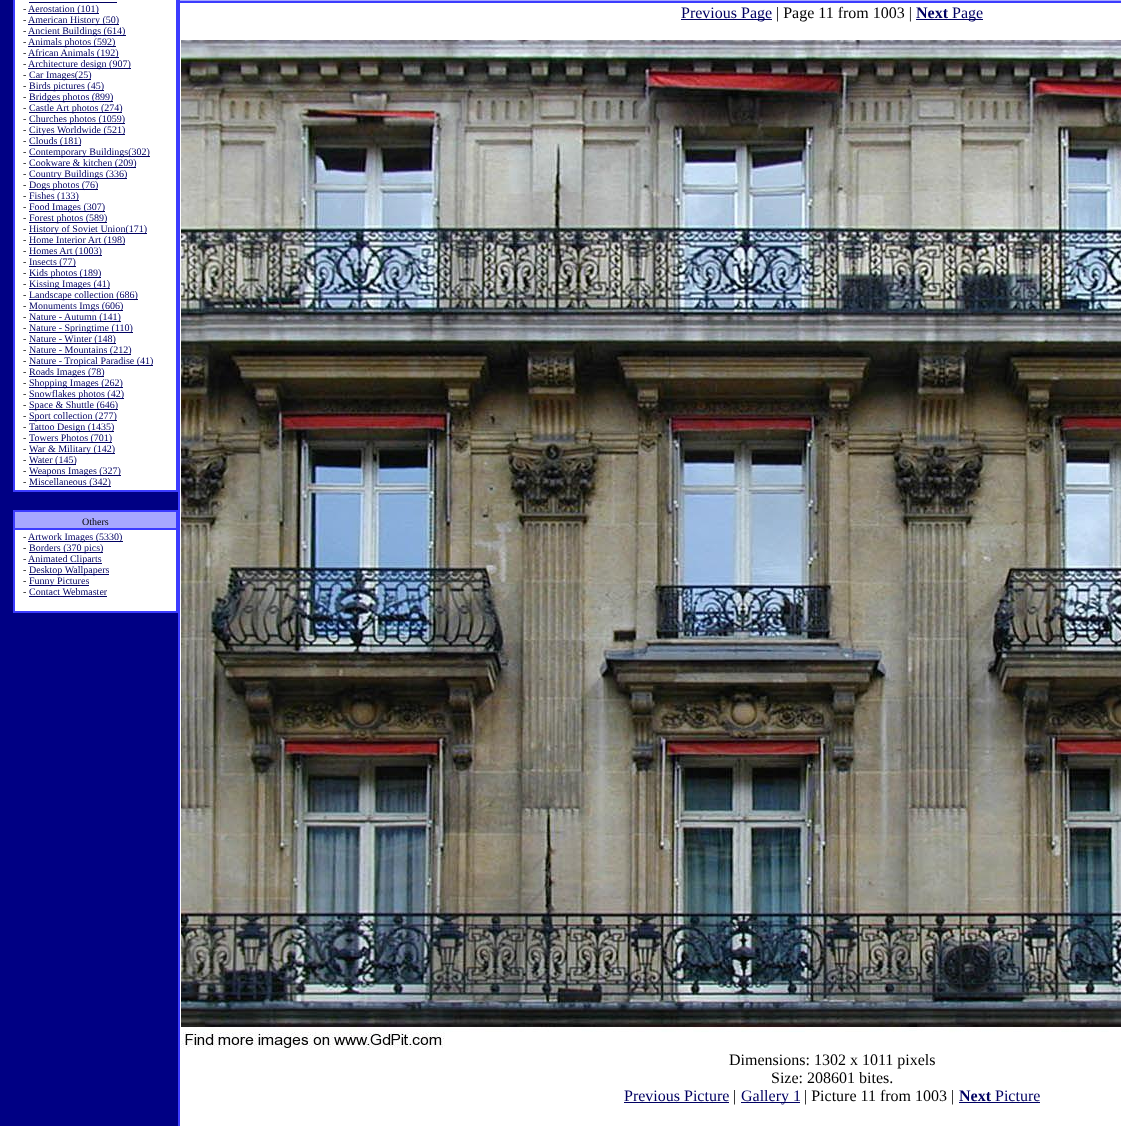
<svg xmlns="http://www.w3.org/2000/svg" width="1121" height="1126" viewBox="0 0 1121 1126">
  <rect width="100%" height="100%" fill="#000084"/>
  <path d="M13 0h165v492H13z" fill="#3c3cff"/>
  <path d="M15 0h161v490H15z" fill="#fff"/>
  <path d="M29 2h88v1H29z" fill="#000062"/>
  <path d="M28 13h71v1H28z" fill="#000062"/>
  <path d="M28 24h91v1H28z" fill="#000062"/>
  <path d="M28 35h98v1H28z" fill="#000062"/>
  <path d="M28 46h88v1H28z" fill="#000062"/>
  <path d="M28 57h91v1H28z" fill="#000062"/>
  <path d="M28 68h103v1H28z" fill="#000062"/>
  <path d="M29 79h62v1H29z" fill="#000062"/>
  <path d="M29 90h75v1H29z" fill="#000062"/>
  <path d="M29 101h84v1H29z" fill="#000062"/>
  <path d="M29 112h93v1H29z" fill="#000062"/>
  <path d="M29 123h96v1H29z" fill="#000062"/>
  <path d="M29 134h96v1H29z" fill="#000062"/>
  <path d="M29 145h52v1H29z" fill="#000062"/>
  <path d="M29 156h121v1H29z" fill="#000062"/>
  <path d="M29 167h107v1H29z" fill="#000062"/>
  <path d="M29 178h98v1H29z" fill="#000062"/>
  <path d="M29 189h69v1H29z" fill="#000062"/>
  <path d="M29 200h50v1H29z" fill="#000062"/>
  <path d="M29 211h76v1H29z" fill="#000062"/>
  <path d="M29 222h78v1H29z" fill="#000062"/>
  <path d="M29 233h118v1H29z" fill="#000062"/>
  <path d="M29 244h96v1H29z" fill="#000062"/>
  <path d="M29 255h73v1H29z" fill="#000062"/>
  <path d="M29 266h47v1H29z" fill="#000062"/>
  <path d="M29 277h72v1H29z" fill="#000062"/>
  <path d="M29 288h81v1H29z" fill="#000062"/>
  <path d="M29 299h109v1H29z" fill="#000062"/>
  <path d="M29 310h94v1H29z" fill="#000062"/>
  <path d="M29 321h92v1H29z" fill="#000062"/>
  <path d="M29 332h104v1H29z" fill="#000062"/>
  <path d="M29 343h87v1H29z" fill="#000062"/>
  <path d="M29 354h102v1H29z" fill="#000062"/>
  <path d="M29 365h124v1H29z" fill="#000062"/>
  <path d="M29 376h75v1H29z" fill="#000062"/>
  <path d="M29 387h94v1H29z" fill="#000062"/>
  <path d="M29 398h95v1H29z" fill="#000062"/>
  <path d="M29 409h89v1H29z" fill="#000062"/>
  <path d="M29 420h88v1H29z" fill="#000062"/>
  <path d="M29 431h85v1H29z" fill="#000062"/>
  <path d="M29 442h83v1H29z" fill="#000062"/>
  <path d="M29 453h86v1H29z" fill="#000062"/>
  <path d="M29 464h47v1H29z" fill="#000062"/>
  <path d="M29 475h92v1H29z" fill="#000062"/>
  <path d="M29 486h82v1H29z" fill="#000062"/>
  <path d="M13 510h165v103H13z" fill="#3c3cff"/>
  <path d="M15 512h161v16H15z" fill="#a8a8ff"/>
  <path d="M15 530h161v81H15z" fill="#fff"/>
  <path d="M28 541h95v1H28z" fill="#000062"/>
  <path d="M29 552h74v1H29z" fill="#000062"/>
  <path d="M28 563h74v1H28z" fill="#000062"/>
  <path d="M29 574h80v1H29z" fill="#000062"/>
  <path d="M29 585h60v1H29z" fill="#000062"/>
  <path d="M29 596h78v1H29z" fill="#000062"/>
  <path d="M178 0h943v1126H178z" fill="#3c3cff"/>
  <path d="M180 0h941v1H180z" fill="#a8a8ff"/>
  <path d="M180 3h941v1123H180z" fill="#fff"/>
  <path d="M681 19h91v1H681z" fill="#000062"/>
  <path d="M916 19h67v1H916z" fill="#000062"/>
  <image x="181" y="40" width="940" height="1008" href="img/1.png"/>
  <path d="M624 1102h105v1H624z" fill="#000062"/>
  <path d="M741 1102h59v1H741z" fill="#000062"/>
  <path d="M959 1102h81v1H959z" fill="#000062"/>
  <text x="23" y="12" font-family="Liberation Serif" font-size="10" fill="#000">-</text>
  <text x="28" y="12" font-family="Liberation Serif" font-size="10" fill="#000062">Aerostation (101)</text>
  <text x="23" y="23" font-family="Liberation Serif" font-size="10" fill="#000">-</text>
  <text x="28" y="23" font-family="Liberation Serif" font-size="10" fill="#000062">American History (50)</text>
  <text x="23" y="34" font-family="Liberation Serif" font-size="10" fill="#000">-</text>
  <text x="28" y="34" font-family="Liberation Serif" font-size="10" fill="#000062">Ancient Buildings (614)</text>
  <text x="23" y="45" font-family="Liberation Serif" font-size="10" fill="#000">-</text>
  <text x="28" y="45" font-family="Liberation Serif" font-size="10" fill="#000062">Animals photos (592)</text>
  <text x="23" y="56" font-family="Liberation Serif" font-size="10" fill="#000">-</text>
  <text x="28" y="56" font-family="Liberation Serif" font-size="10" fill="#000062">African Animals (192)</text>
  <text x="23" y="67" font-family="Liberation Serif" font-size="10" fill="#000">-</text>
  <text x="28" y="67" font-family="Liberation Serif" font-size="10" fill="#000062">Architecture design (907)</text>
  <text x="23" y="78" font-family="Liberation Serif" font-size="10" fill="#000">-</text>
  <text x="29" y="78" font-family="Liberation Serif" font-size="10" fill="#000062">Car Images(25)</text>
  <text x="23" y="89" font-family="Liberation Serif" font-size="10" fill="#000">-</text>
  <text x="29" y="89" font-family="Liberation Serif" font-size="10" fill="#000062">Birds pictures (45)</text>
  <text x="23" y="100" font-family="Liberation Serif" font-size="10" fill="#000">-</text>
  <text x="29" y="100" font-family="Liberation Serif" font-size="10" fill="#000062">Bridges photos (899)</text>
  <text x="23" y="111" font-family="Liberation Serif" font-size="10" fill="#000">-</text>
  <text x="29" y="111" font-family="Liberation Serif" font-size="10" fill="#000062">Castle Art photos (274)</text>
  <text x="23" y="122" font-family="Liberation Serif" font-size="10" fill="#000">-</text>
  <text x="29" y="122" font-family="Liberation Serif" font-size="10" fill="#000062">Churches photos (1059)</text>
  <text x="23" y="133" font-family="Liberation Serif" font-size="10" fill="#000">-</text>
  <text x="29" y="133" font-family="Liberation Serif" font-size="10" fill="#000062">Cityes Worldwide (521)</text>
  <text x="23" y="144" font-family="Liberation Serif" font-size="10" fill="#000">-</text>
  <text x="29" y="144" font-family="Liberation Serif" font-size="10" fill="#000062">Clouds (181)</text>
  <text x="23" y="155" font-family="Liberation Serif" font-size="10" fill="#000">-</text>
  <text x="29" y="155" font-family="Liberation Serif" font-size="10" fill="#000062">Contemporary Buildings(302)</text>
  <text x="23" y="166" font-family="Liberation Serif" font-size="10" fill="#000">-</text>
  <text x="29" y="166" font-family="Liberation Serif" font-size="10" fill="#000062">Cookware &amp; kitchen (209)</text>
  <text x="23" y="177" font-family="Liberation Serif" font-size="10" fill="#000">-</text>
  <text x="29" y="177" font-family="Liberation Serif" font-size="10" fill="#000062">Country Buildings (336)</text>
  <text x="23" y="188" font-family="Liberation Serif" font-size="10" fill="#000">-</text>
  <text x="29" y="188" font-family="Liberation Serif" font-size="10" fill="#000062">Dogs photos (76)</text>
  <text x="23" y="199" font-family="Liberation Serif" font-size="10" fill="#000">-</text>
  <text x="29" y="199" font-family="Liberation Serif" font-size="10" fill="#000062">Fishes (133)</text>
  <text x="23" y="210" font-family="Liberation Serif" font-size="10" fill="#000">-</text>
  <text x="29" y="210" font-family="Liberation Serif" font-size="10" fill="#000062">Food Images (307)</text>
  <text x="23" y="221" font-family="Liberation Serif" font-size="10" fill="#000">-</text>
  <text x="29" y="221" font-family="Liberation Serif" font-size="10" fill="#000062">Forest photos (589)</text>
  <text x="23" y="232" font-family="Liberation Serif" font-size="10" fill="#000">-</text>
  <text x="29" y="232" font-family="Liberation Serif" font-size="10" fill="#000062">History of Soviet Union(171)</text>
  <text x="23" y="243" font-family="Liberation Serif" font-size="10" fill="#000">-</text>
  <text x="29" y="243" font-family="Liberation Serif" font-size="10" fill="#000062">Home Interior Art (198)</text>
  <text x="23" y="254" font-family="Liberation Serif" font-size="10" fill="#000">-</text>
  <text x="29" y="254" font-family="Liberation Serif" font-size="10" fill="#000062">Homes Art (1003)</text>
  <text x="23" y="265" font-family="Liberation Serif" font-size="10" fill="#000">-</text>
  <text x="29" y="265" font-family="Liberation Serif" font-size="10" fill="#000062">Insects (77)</text>
  <text x="23" y="276" font-family="Liberation Serif" font-size="10" fill="#000">-</text>
  <text x="29" y="276" font-family="Liberation Serif" font-size="10" fill="#000062">Kids photos (189)</text>
  <text x="23" y="287" font-family="Liberation Serif" font-size="10" fill="#000">-</text>
  <text x="29" y="287" font-family="Liberation Serif" font-size="10" fill="#000062">Kissing Images (41)</text>
  <text x="23" y="298" font-family="Liberation Serif" font-size="10" fill="#000">-</text>
  <text x="29" y="298" font-family="Liberation Serif" font-size="10" fill="#000062">Landscape collection (686)</text>
  <text x="23" y="309" font-family="Liberation Serif" font-size="10" fill="#000">-</text>
  <text x="29" y="309" font-family="Liberation Serif" font-size="10" fill="#000062">Monuments Imgs (606)</text>
  <text x="23" y="320" font-family="Liberation Serif" font-size="10" fill="#000">-</text>
  <text x="29" y="320" font-family="Liberation Serif" font-size="10" fill="#000062">Nature - Autumn (141)</text>
  <text x="23" y="331" font-family="Liberation Serif" font-size="10" fill="#000">-</text>
  <text x="29" y="331" font-family="Liberation Serif" font-size="10" fill="#000062">Nature - Springtime (110)</text>
  <text x="23" y="342" font-family="Liberation Serif" font-size="10" fill="#000">-</text>
  <text x="29" y="342" font-family="Liberation Serif" font-size="10" fill="#000062">Nature - Winter (148)</text>
  <text x="23" y="353" font-family="Liberation Serif" font-size="10" fill="#000">-</text>
  <text x="29" y="353" font-family="Liberation Serif" font-size="10" fill="#000062">Nature - Mountains (212)</text>
  <text x="23" y="364" font-family="Liberation Serif" font-size="10" fill="#000">-</text>
  <text x="29" y="364" font-family="Liberation Serif" font-size="10" fill="#000062">Nature - Tropical Paradise (41)</text>
  <text x="23" y="375" font-family="Liberation Serif" font-size="10" fill="#000">-</text>
  <text x="29" y="375" font-family="Liberation Serif" font-size="10" fill="#000062">Roads Images (78)</text>
  <text x="23" y="386" font-family="Liberation Serif" font-size="10" fill="#000">-</text>
  <text x="29" y="386" font-family="Liberation Serif" font-size="10" fill="#000062">Shopping Images (262)</text>
  <text x="23" y="397" font-family="Liberation Serif" font-size="10" fill="#000">-</text>
  <text x="29" y="397" font-family="Liberation Serif" font-size="10" fill="#000062">Snowflakes photos (42)</text>
  <text x="23" y="408" font-family="Liberation Serif" font-size="10" fill="#000">-</text>
  <text x="29" y="408" font-family="Liberation Serif" font-size="10" fill="#000062">Space &amp; Shuttle (646)</text>
  <text x="23" y="419" font-family="Liberation Serif" font-size="10" fill="#000">-</text>
  <text x="29" y="419" font-family="Liberation Serif" font-size="10" fill="#000062">Sport collection (277)</text>
  <text x="23" y="430" font-family="Liberation Serif" font-size="10" fill="#000">-</text>
  <text x="29" y="430" font-family="Liberation Serif" font-size="10" fill="#000062">Tattoo Design (1435)</text>
  <text x="23" y="441" font-family="Liberation Serif" font-size="10" fill="#000">-</text>
  <text x="29" y="441" font-family="Liberation Serif" font-size="10" fill="#000062">Towers Photos (701)</text>
  <text x="23" y="452" font-family="Liberation Serif" font-size="10" fill="#000">-</text>
  <text x="29" y="452" font-family="Liberation Serif" font-size="10" fill="#000062">War &amp; Military (142)</text>
  <text x="23" y="463" font-family="Liberation Serif" font-size="10" fill="#000">-</text>
  <text x="29" y="463" font-family="Liberation Serif" font-size="10" fill="#000062">Water (145)</text>
  <text x="23" y="474" font-family="Liberation Serif" font-size="10" fill="#000">-</text>
  <text x="29" y="474" font-family="Liberation Serif" font-size="10" fill="#000062">Weapons Images (327)</text>
  <text x="23" y="485" font-family="Liberation Serif" font-size="10" fill="#000">-</text>
  <text x="29" y="485" font-family="Liberation Serif" font-size="10" fill="#000062">Miscellaneous (342)</text>
  <g font-family="Liberation Serif" font-size="10" fill="#000">
    <text x="82" y="525">Others</text>
    <text x="23" y="540">-</text>
  </g>
  <text x="28" y="540" font-family="Liberation Serif" font-size="10" fill="#000062">Artwork Images (5330)</text>
  <text x="23" y="551" font-family="Liberation Serif" font-size="10" fill="#000">-</text>
  <text x="29" y="551" font-family="Liberation Serif" font-size="10" fill="#000062">Borders (370 pics)</text>
  <text x="23" y="562" font-family="Liberation Serif" font-size="10" fill="#000">-</text>
  <text x="28" y="562" font-family="Liberation Serif" font-size="10" fill="#000062">Animated Cliparts</text>
  <text x="23" y="573" font-family="Liberation Serif" font-size="10" fill="#000">-</text>
  <text x="29" y="573" font-family="Liberation Serif" font-size="10" fill="#000062">Desktop Wallpapers</text>
  <text x="23" y="584" font-family="Liberation Serif" font-size="10" fill="#000">-</text>
  <text x="29" y="584" font-family="Liberation Serif" font-size="10" fill="#000062">Funny Pictures</text>
  <text x="23" y="595" font-family="Liberation Serif" font-size="10" fill="#000">-</text>
  <text x="29" y="595" font-family="Liberation Serif" font-size="10" fill="#000062">Contact Webmaster</text>
  <text x="681" y="18" font-family="Liberation Serif" font-size="16" fill="#000062">Previous Page</text>
  <text x="776" y="18" font-family="Liberation Serif" font-size="16" fill="#000">| Page 11 from 1003 |</text>
  <text x="916" y="18" font-family="Liberation Serif" font-size="16" font-weight="bold" fill="#000062">Next</text>
  <text x="952" y="18" font-family="Liberation Serif" font-size="16" fill="#000062">Page</text>
  <g font-family="Liberation Serif" font-size="16" fill="#000">
    <text x="729" y="1065">Dimensions: 1302 x 1011 pixels</text>
    <text x="771" y="1083">Size: 208601 bites.</text>
  </g>
  <text x="624" y="1101" font-family="Liberation Serif" font-size="16" fill="#000062">Previous Picture</text>
  <text x="733" y="1101" font-family="Liberation Serif" font-size="16" fill="#000">|</text>
  <text x="741" y="1101" font-family="Liberation Serif" font-size="16" fill="#000062">Gallery 1</text>
  <text x="804" y="1101" font-family="Liberation Serif" font-size="16" fill="#000">| Picture 11 from 1003 |</text>
  <text x="959" y="1101" font-family="Liberation Serif" font-size="16" font-weight="bold" fill="#000062">Next</text>
  <text x="995" y="1101" font-family="Liberation Serif" font-size="16" fill="#000062">Picture</text>
</svg>
